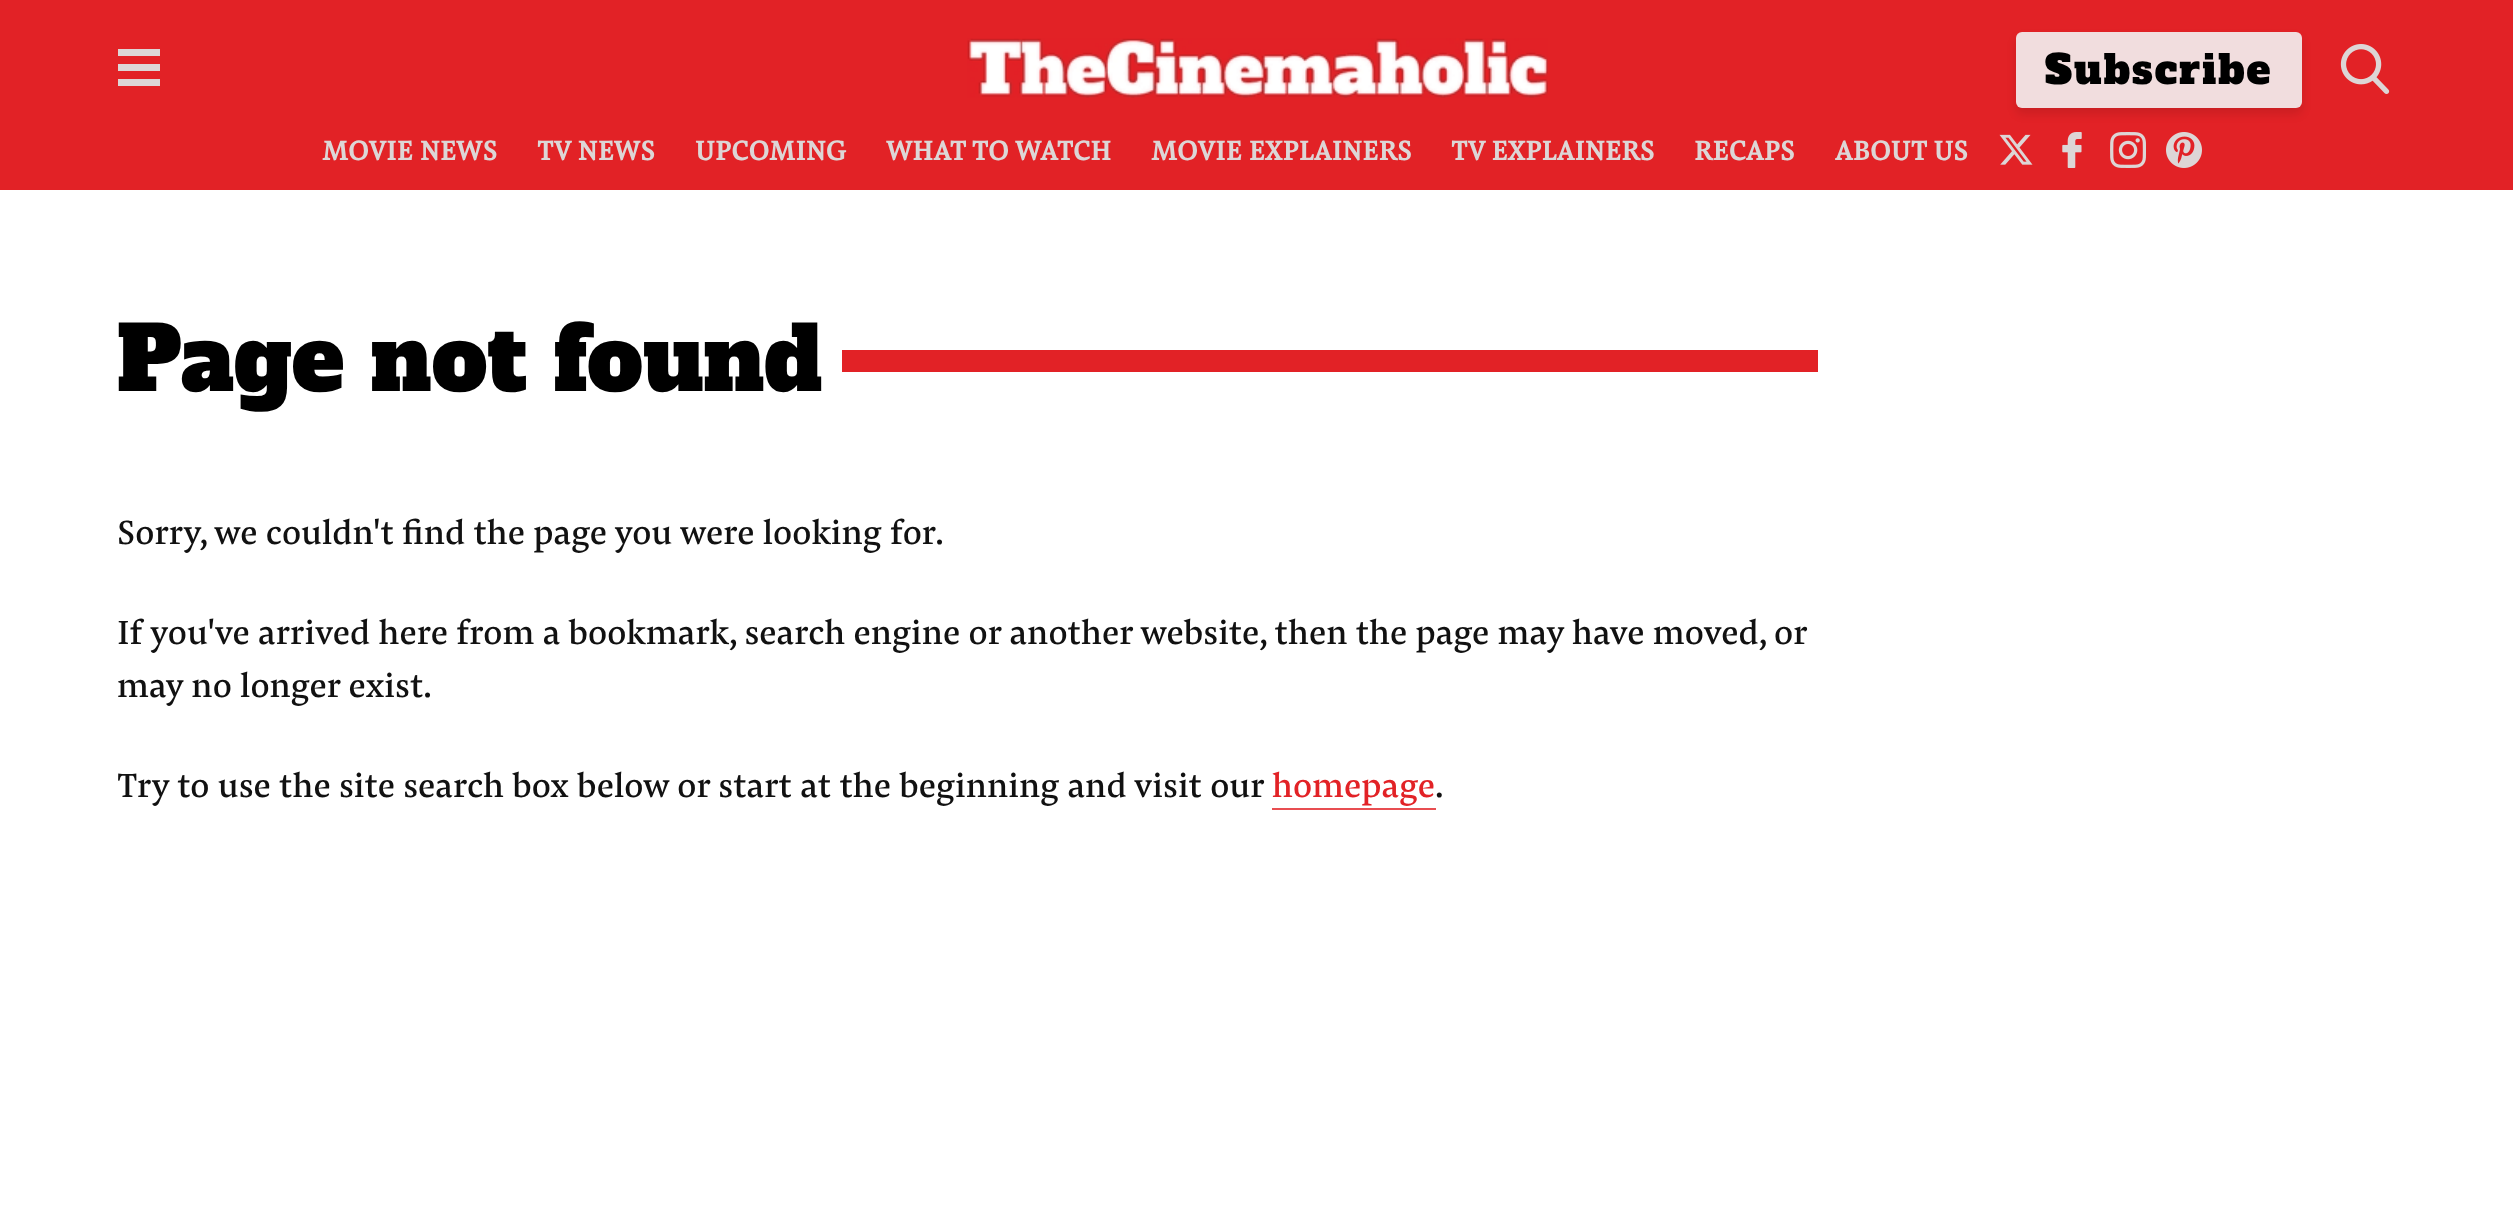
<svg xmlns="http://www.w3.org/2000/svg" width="2513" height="1208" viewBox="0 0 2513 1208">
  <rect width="100%" height="100%" fill="#fff"/>
  <path d="M0 0h2513v190H0z" fill="#e22226"/>
  <path d="M118 49h42v7H118z" fill="#ddd6d6"/>
  <path d="M118 64h42v7H118z" fill="#ddd6d6"/>
  <path d="M118 79h42v7H118z" fill="#ddd6d6"/>
  <image x="967" y="38" width="581" height="60" href="img/1.png"/>
  <rect x="2016" y="38" width="286" height="76" rx="6" fill="#0000001a" filter="blur(5px)"/>
  <rect x="2016" y="32" width="286" height="76" rx="6" fill="#f1ddde"/>
  <image x="2340" y="44" width="50" height="50" href="img/2.png"/>
  <image x="1999" y="134" width="34" height="31" href="img/3.png"/>
  <image x="2062" y="132" width="20" height="36" href="img/4.png"/>
  <image x="2110" y="132" width="36" height="36" href="img/5.png"/>
  <image x="2166" y="132" width="36" height="36" href="img/6.png"/>
  <path d="M842 350h976v22H842z" fill="#e22226"/>
  <path d="M1272 808h164v2H1272z" fill="#e84e51"/>
  <text x="2045" y="84" font-family="Alfa Slab One" font-size="40" letter-spacing="2" fill="#000">Subscribe</text>
  <g font-family="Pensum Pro" font-size="28" font-weight="bold" letter-spacing="0.25" fill="#ddd6d6">
    <text x="322" y="160">MOVIE NEWS</text>
    <text x="537" y="160">TV NEWS</text>
    <text x="695" y="160">UPCOMING</text>
    <text x="886" y="160">WHAT TO WATCH</text>
    <text x="1151" y="160">MOVIE EXPLAINERS</text>
    <text x="1451" y="160">TV EXPLAINERS</text>
    <text x="1694" y="160">RECAPS</text>
    <text x="1835" y="160">ABOUT US</text>
  </g>
  <text x="117" y="391" font-family="Alfa Slab One" font-size="88" fill="#000">Page not found</text>
  <g font-family="Pensum Pro" font-size="35" fill="#111">
    <text x="117" y="544">Sorry, we couldn't find the page you were looking for.</text>
    <text x="117" y="644">If you've arrived here from a bookmark, search engine or another website, then the page may have moved, or</text>
    <text x="117" y="697">may no longer exist.</text>
    <text x="117" y="797">Try to use the site search box below or start at the beginning and visit our</text>
  </g>
  <text x="1272" y="797" font-family="Pensum Pro" font-size="35" fill="#e22226">homepage</text>
  <text x="1435" y="797" font-family="Pensum Pro" font-size="35" fill="#111">.</text>
</svg>
